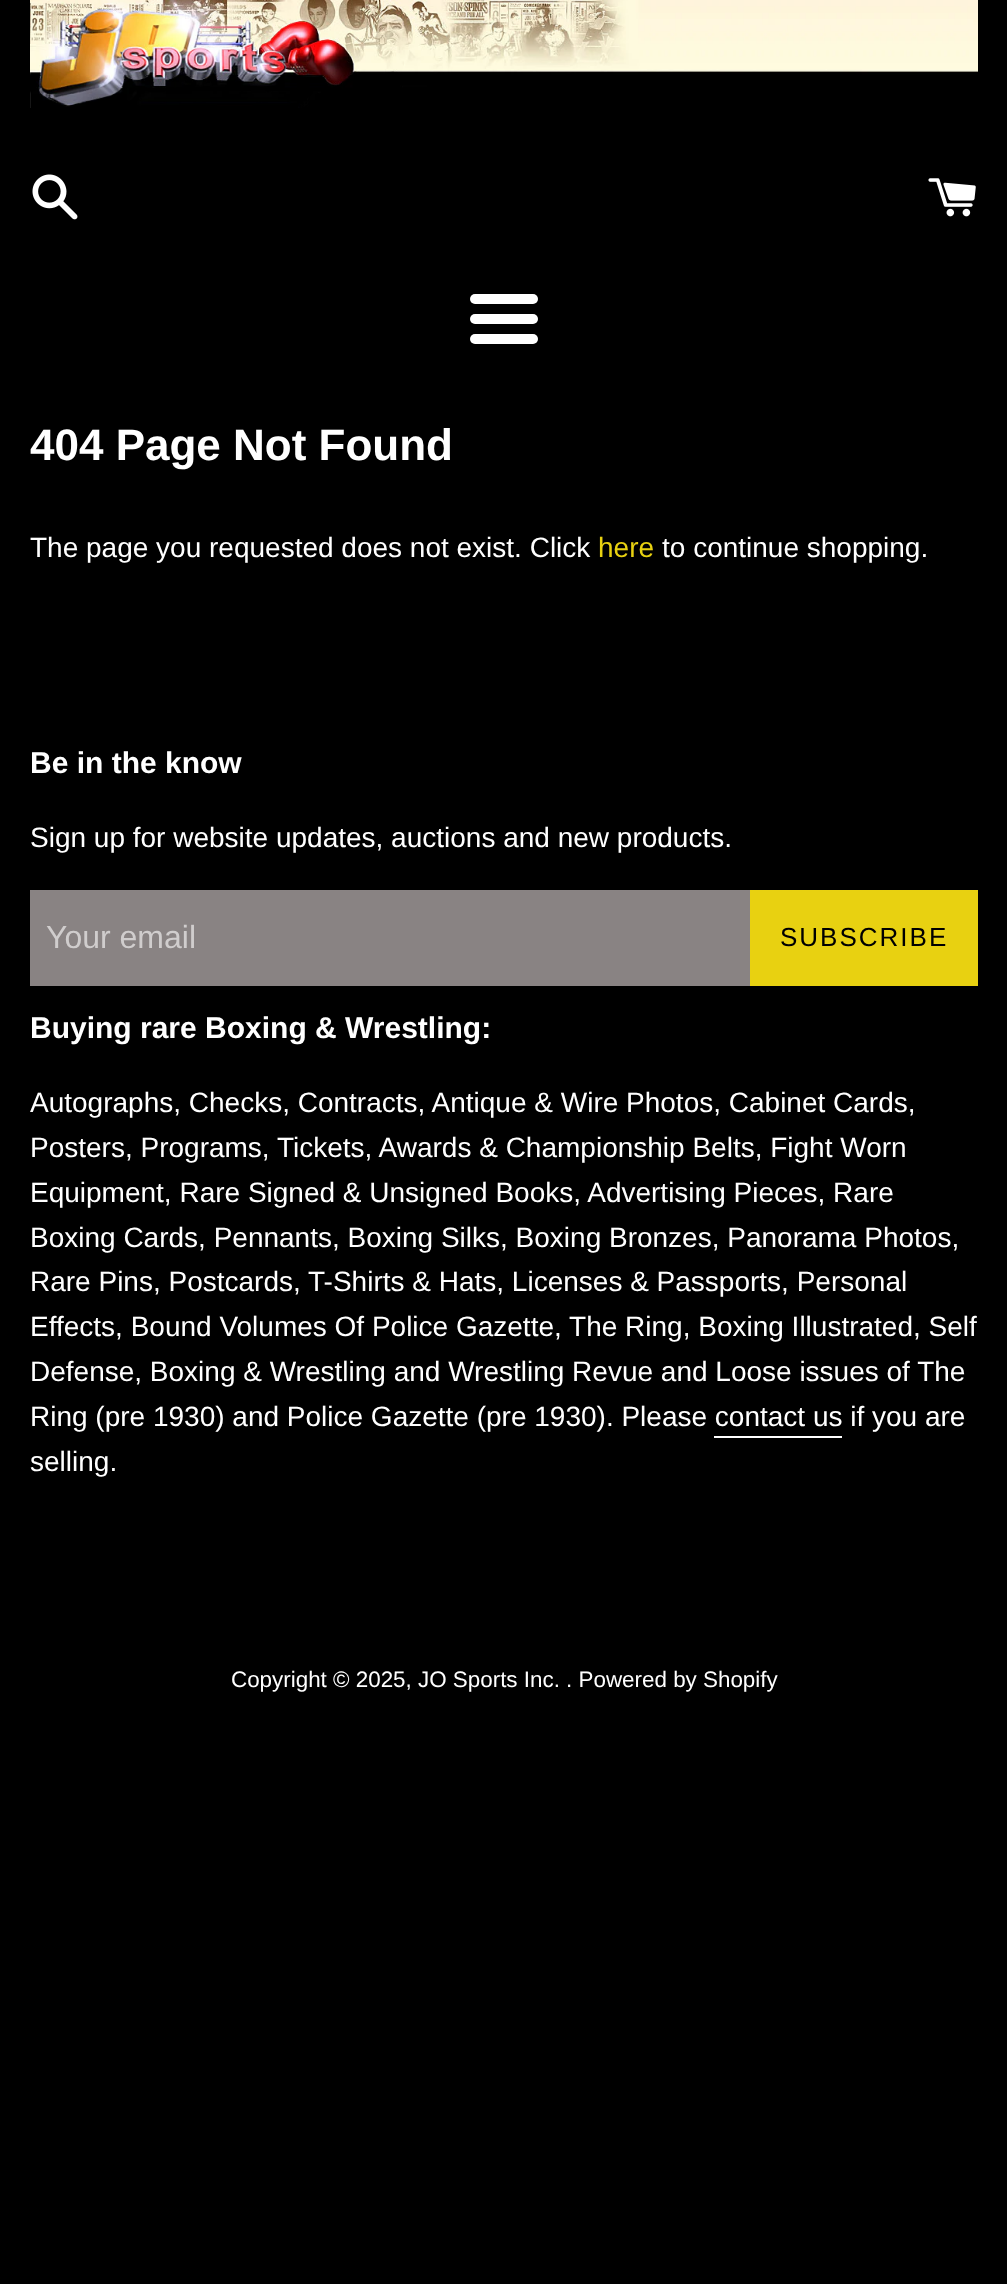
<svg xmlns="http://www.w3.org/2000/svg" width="1007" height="2284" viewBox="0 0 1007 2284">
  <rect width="100%" height="100%" fill="#000"/>
  <image x="30" y="0" width="948" height="108" href="img/1.png"/>
  <image x="32" y="174" width="46" height="46" href="img/2.png"/>
  <image x="928" y="178" width="48" height="39" href="img/3.png"/>
  <rect x="470" y="294" width="68" height="10" rx="5" fill="#fff"/>
  <rect x="470" y="314" width="68" height="10" rx="5" fill="#fff"/>
  <rect x="470" y="334" width="68" height="10" rx="5" fill="#fff"/>
  <path d="M30 890h720v96H30z" fill="#898383"/>
  <path d="M750 890h228v96H750z" fill="#e8d111"/>
  <path d="M714 1436h128v2H714z" fill="#fff"/>
  <text x="30" y="460" font-family="Liberation Sans" font-size="44" font-weight="bold" fill="#fff">404 Page Not Found</text>
  <text x="30" y="557" font-family="Liberation Sans" font-size="28" fill="#fff">The page you requested does not exist. Click</text>
  <text x="598" y="557" font-family="Liberation Sans" font-size="28" fill="#e8d111">here</text>
  <text x="662" y="557" font-family="Liberation Sans" font-size="28" fill="#fff">to continue shopping.</text>
  <text x="30" y="773" font-family="Liberation Sans" font-size="30" font-weight="bold" fill="#fff">Be in the know</text>
  <text x="30" y="847" font-family="Liberation Sans" font-size="28" fill="#fff">Sign up for website updates, auctions and new products.</text>
  <text x="46" y="948" font-family="Liberation Sans" font-size="32" fill="#d0cdcd">Your email</text>
  <text x="780" y="946" font-family="Liberation Sans" font-size="26" letter-spacing="2" fill="#000">SUBSCRIBE</text>
  <text x="30" y="1038" font-family="Liberation Sans" font-size="30" font-weight="bold" fill="#fff">Buying rare Boxing &amp; Wrestling:</text>
  <g font-family="Liberation Sans" font-size="28" fill="#fff">
    <text x="30" y="1112">Autographs, Checks, Contracts, Antique &amp; Wire Photos, Cabinet Cards,</text>
    <text x="30" y="1157">Posters, Programs, Tickets, Awards &amp; Championship Belts, Fight Worn</text>
    <text x="30" y="1202">Equipment, Rare Signed &amp; Unsigned Books, Advertising Pieces, Rare</text>
    <text x="30" y="1247">Boxing Cards, Pennants, Boxing Silks, Boxing Bronzes, Panorama Photos,</text>
    <text x="30" y="1291">Rare Pins, Postcards, T-Shirts &amp; Hats, Licenses &amp; Passports, Personal</text>
    <text x="30" y="1336">Effects, Bound Volumes Of Police Gazette, The Ring, Boxing Illustrated, Self</text>
    <text x="30" y="1381">Defense, Boxing &amp; Wrestling and Wrestling Revue and Loose issues of The</text>
    <text x="30" y="1426">Ring (pre 1930) and Police Gazette (pre 1930). Please contact us if you are</text>
    <text x="30" y="1471">selling.</text>
  </g>
  <text x="231" y="1687" font-family="Liberation Sans" font-size="22.4" fill="#fff">Copyright © 2025, JO Sports Inc. . Powered by Shopify</text>
</svg>
